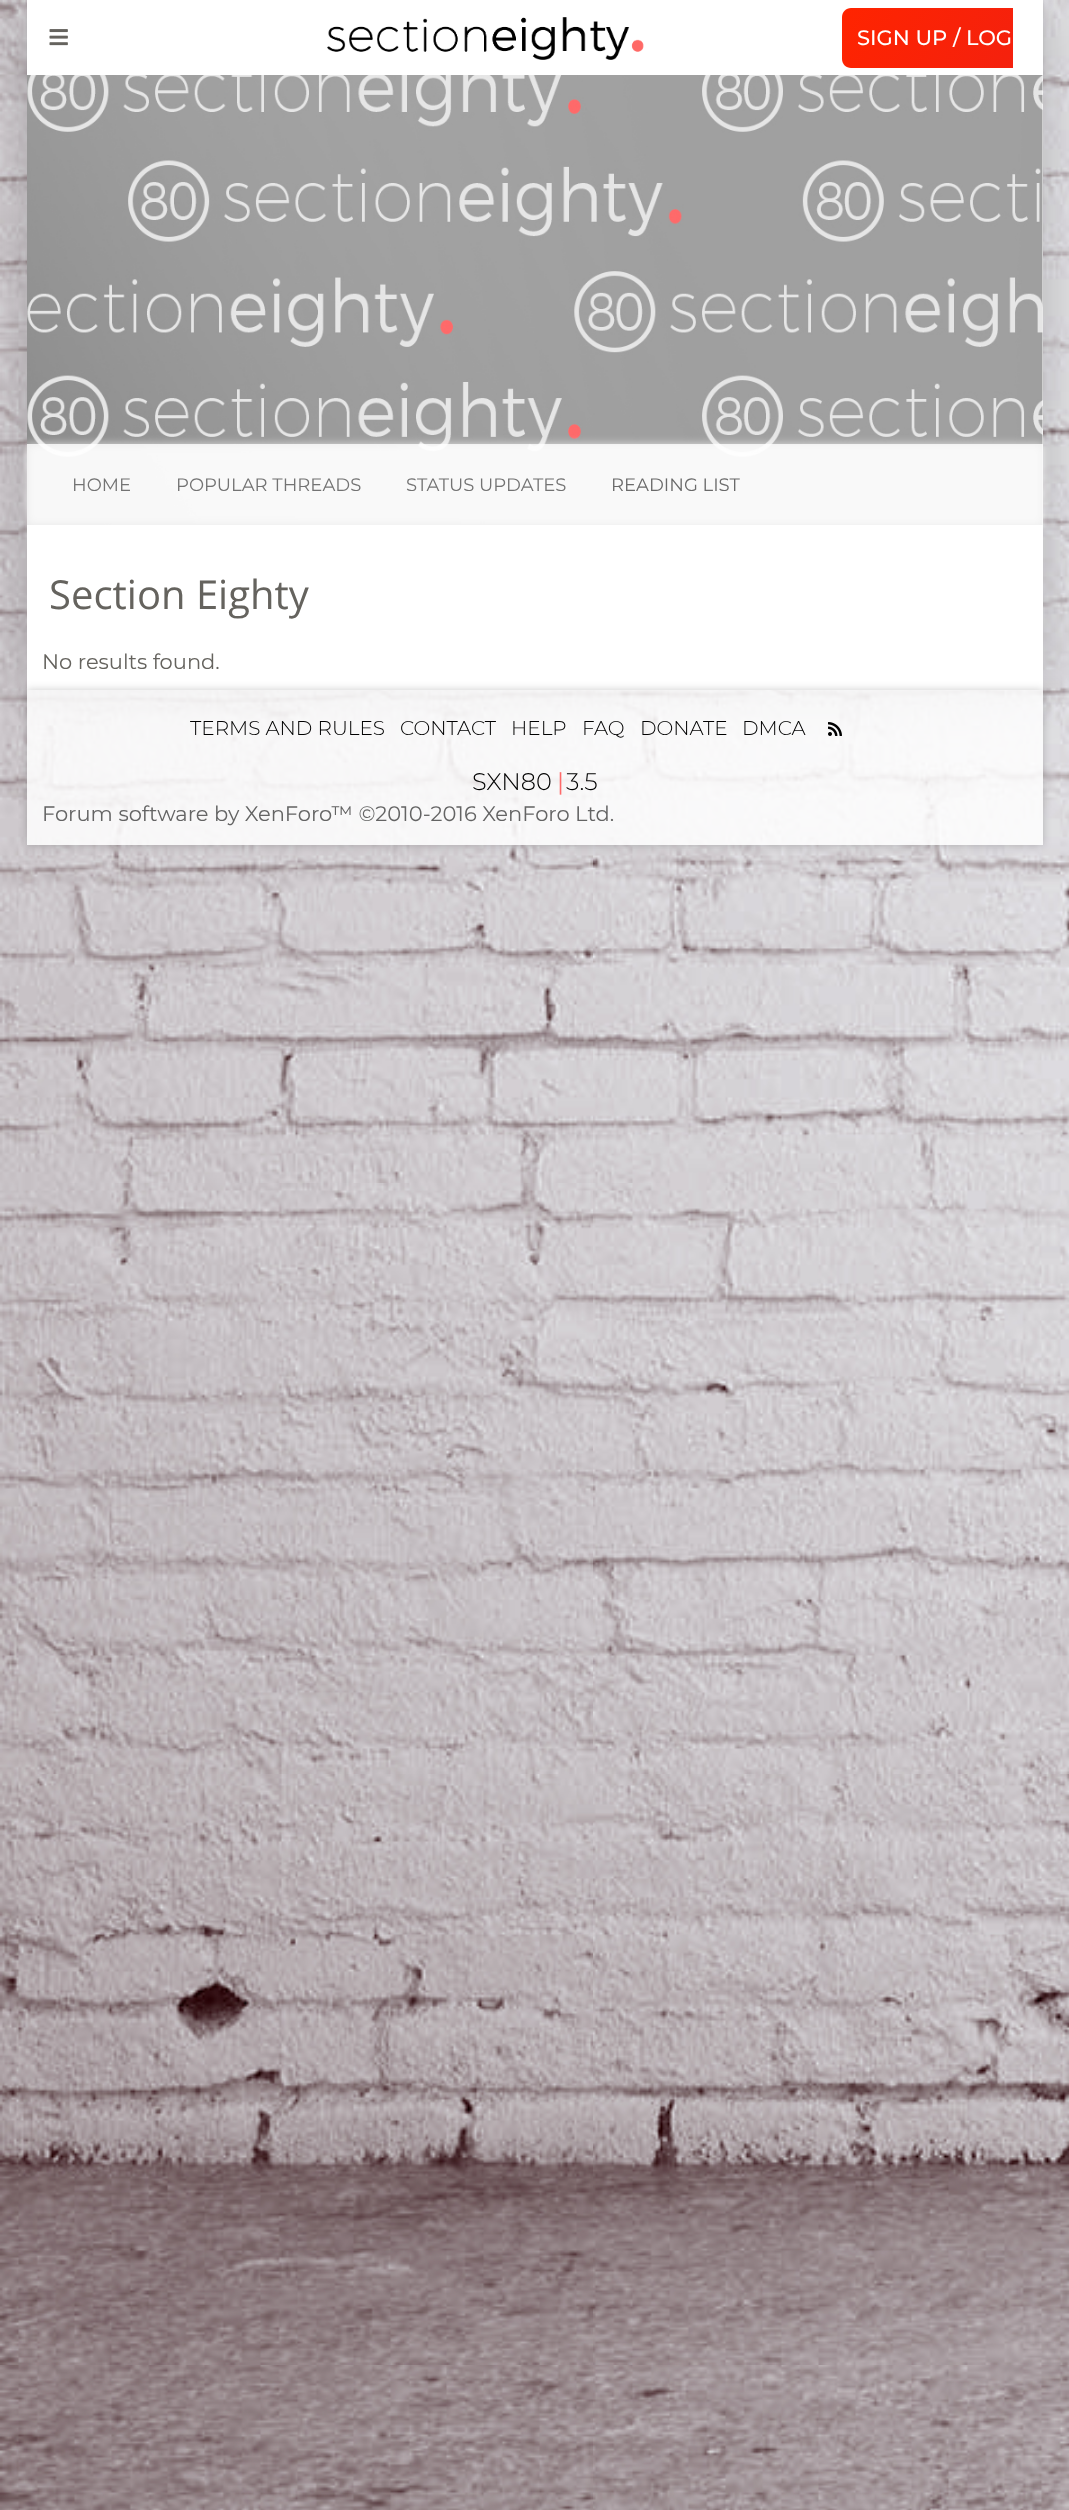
<svg xmlns="http://www.w3.org/2000/svg" width="1069" height="2510" viewBox="0 0 1069 2510">
  <defs>
    <linearGradient id="g1" gradientUnits="userSpaceOnUse" x1="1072" y1="-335" x2="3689" y2="1430"><stop offset="0" stop-color="#ff2400"/><stop offset="0.12" stop-color="#e81d1d"/><stop offset="0.25" stop-color="#e8b71d"/><stop offset="0.38" stop-color="#e3e81d"/><stop offset="0.5" stop-color="#1de840"/><stop offset="0.62" stop-color="#1ddde8"/><stop offset="0.75" stop-color="#2b1de8"/><stop offset="0.88" stop-color="#dd00f3"/><stop offset="1" stop-color="#dd00f3"/></linearGradient>
    <clipPath id="clip1"><path d="M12 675H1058V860H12ZM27 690H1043V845H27Z" clip-rule="evenodd"/></clipPath>
  </defs>
  <rect width="100%" height="100%" fill="#fff"/>
  <image x="0" y="0" width="1069" height="2510" href="img/1.png"/>
  <path d="M27 3h1016v690H27z" fill="#00000033" filter="blur(26px)"/>
  <path d="M27 75h1016v615H27z" fill="#fff"/>
  <path d="M27 2h1016v75H27z" fill="#0000001a" filter="blur(1.5px)"/>
  <path d="M27 0h1016v75H27z" fill="#fff"/>
  <image x="49" y="29" width="19" height="17" href="img/2.png"/>
  <image x="327" y="17" width="317" height="43" href="img/3.png"/>
  <path d="M851 8H1013V68H851C846 68 842 64 842 59V17C842 12 846 8 851 8Z" fill="url(#g1)"/>
  <image x="27" y="75" width="1016" height="450" href="img/4.png"/>
  <path d="M27 444h1016v81H27z" fill="#ffffffcf"/>
  <path d="M27 444h1016v81H27z" fill="#ffffffad" filter="blur(4.5px)"/>
  <g clip-path="url(#clip1)">
    <path d="M27 690h1016v155H27z" fill="#00000033" filter="blur(4.5px)"/>
  </g>
  <path d="M27 690h1016v155H27z" fill="#ffffffd9"/>
  <image x="828" y="722" width="14" height="14" href="img/5.png"/>
  <text x="857" y="45" font-family="Montserrat" font-size="21" font-weight="500" fill="#fff">SIGN UP / LOG</text>
  <g font-family="Montserrat" font-size="18" font-weight="100" fill="#737373">
    <text x="72" y="491">HOME</text>
    <text x="176" y="491">POPULAR THREADS</text>
    <text x="406" y="491">STATUS UPDATES</text>
  </g>
  <text x="611" y="491" font-family="Montserrat" font-size="18" font-weight="100" fill="#6a6a6a">READING LIST</text>
  <text x="49" y="609" font-family="Open Sans" font-size="40" fill="#65635e">Section Eighty</text>
  <text x="42" y="669" font-family="Montserrat" font-size="21" font-weight="100" fill="#65635e">No results found.</text>
  <g font-family="Montserrat" font-size="20" font-weight="300" fill="#000">
    <text x="190" y="735">TERMS AND RULES</text>
    <text x="400" y="735">CONTACT</text>
    <text x="511" y="735">HELP</text>
    <text x="582" y="735">FAQ</text>
    <text x="640" y="735">DONATE</text>
    <text x="742" y="735">DMCA</text>
  </g>
  <text x="472" y="790" font-family="Montserrat" font-size="24" font-weight="300" fill="#000">SXN80</text>
  <text x="557" y="790" font-family="Montserrat" font-size="24" font-weight="100" fill="#ff6a6a">|</text>
  <text x="566" y="790" font-family="Montserrat" font-size="24" font-weight="300" fill="#000">3.5</text>
  <text x="42" y="821" font-family="Montserrat" font-size="21" font-weight="100" fill="#646464">Forum software by XenForo™ ©2010-2016 XenForo Ltd.</text>
</svg>
